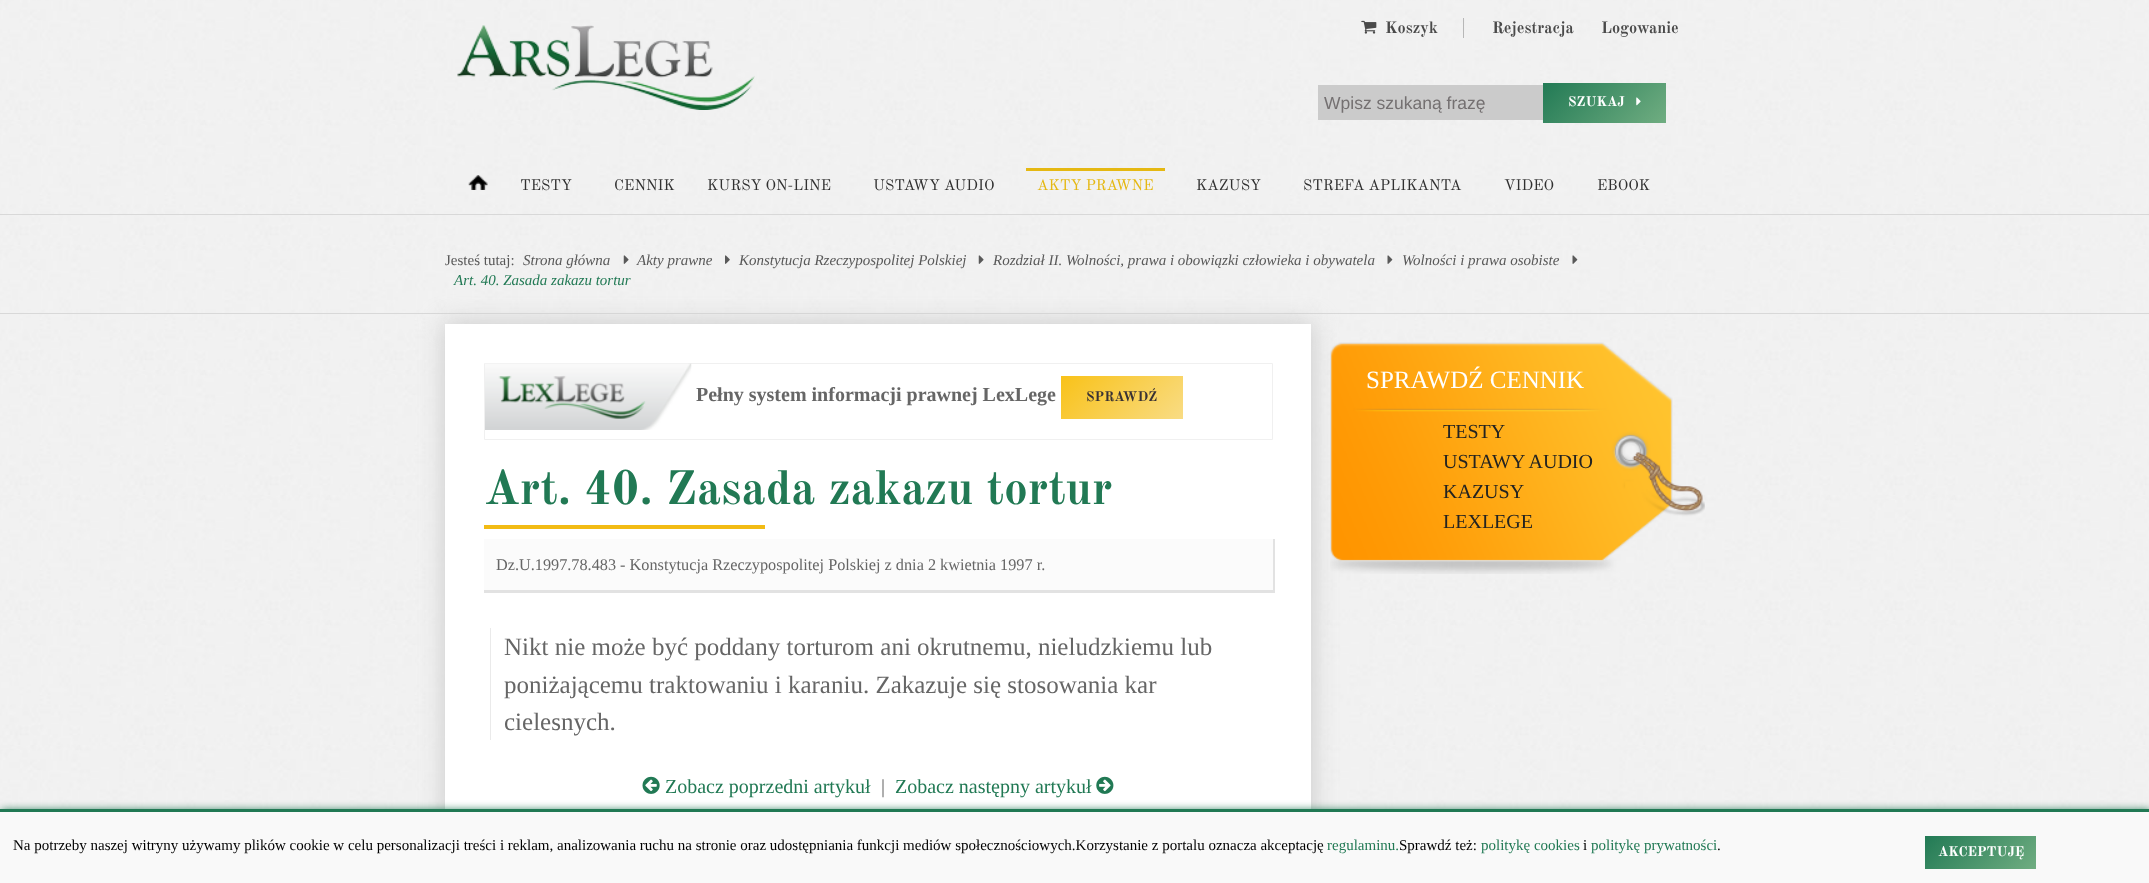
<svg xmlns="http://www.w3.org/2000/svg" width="2149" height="883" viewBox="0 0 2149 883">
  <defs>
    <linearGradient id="g1" gradientUnits="userSpaceOnUse" x1="1584" y1="41" x2="1748" y2="204"><stop offset="0" stop-color="#227a55"/><stop offset="0.5" stop-color="#70ad81"/><stop offset="1" stop-color="#227a55"/></linearGradient>
    <linearGradient id="g2" gradientUnits="userSpaceOnUse" x1="1101" y1="337" x2="1264" y2="501"><stop offset="0" stop-color="#f9c219"/><stop offset="0.5" stop-color="#f9dc84"/><stop offset="1" stop-color="#f9c219"/></linearGradient>
    <linearGradient id="g3" gradientUnits="userSpaceOnUse" x1="1964" y1="797" x2="2108" y2="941"><stop offset="0" stop-color="#227a55"/><stop offset="0.5" stop-color="#70ad81"/><stop offset="1" stop-color="#227a55"/></linearGradient>
  </defs>
  <rect width="100%" height="100%" fill="#fff"/>
  <image x="0" y="0" width="2149" height="809" href="img/1.png"/>
  <image x="457" y="25" width="298" height="85" href="img/2.png"/>
  <path d="M1463 18h1v20H1463z" fill="#b7b7b7"/>
  <image x="1361" y="20" width="16" height="14" href="img/3.png"/>
  <path d="M1318 85h225v35H1318z" fill="#cbcbcb"/>
  <path d="M1543 83h123v40H1543z" fill="url(#g1)"/>
  <image x="1636" y="97" width="5" height="9" href="img/4.png"/>
  <image x="468" y="175" width="20" height="15" href="img/5.png"/>
  <path d="M1026 168h139v3H1026z" fill="#e5b812"/>
  <path d="M0 214h2149v1H0z" fill="#d8d8d8"/>
  <image x="623" y="255" width="6" height="9" href="img/6.png"/>
  <image x="725" y="255" width="5" height="9" href="img/7.png"/>
  <image x="978" y="255" width="6" height="9" href="img/8.png"/>
  <image x="1387" y="255" width="6" height="9" href="img/9.png"/>
  <image x="1572" y="255" width="6" height="9" href="img/10.png"/>
  <path d="M0 313h2149v1H0z" fill="#d8d8d8"/>
  <path d="M444 323h869v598H444z" fill="#ccc" filter="blur(12.5px)"/>
  <path d="M445 324h866v485H445z" fill="#fff"/>
  <path d="M484.5 363.5h788v76H484.5z" fill="none" stroke="#f0f0f0"/>
  <image x="485" y="363" width="207" height="67" href="img/11.png"/>
  <path d="M1061 376h122v43H1061z" fill="url(#g2)"/>
  <path d="M484 525h281v4H484z" fill="#f2bb14"/>
  <path d="M484 539h791v54H484z" fill="#e2e2e2" filter="blur(0.5px)"/>
  <path d="M484 539h789v51H484z" fill="#fbfbfb"/>
  <path d="M490 628h1v112H490z" fill="#eaeaea"/>
  <image x="642" y="776" width="18" height="18" href="img/12.png"/>
  <image x="1096" y="776" width="18" height="18" href="img/13.png"/>
  <image x="1330" y="342" width="375" height="232" href="img/14.png"/>
  <path d="M1 810h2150v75H1z" fill="#217954" filter="blur(4px)"/>
  <path d="M0 812h2149v71H0z" fill="#f9f9f9"/>
  <path d="M0 809h2149v3H0z" fill="#217954"/>
  <path d="M1925 836h111v33H1925z" fill="url(#g3)"/>
  <g font-family="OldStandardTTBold" font-size="16.25" font-weight="bold" fill="#4a4a4a">
    <text x="1385" y="33">Koszyk</text>
    <text x="1492" y="33">Rejestracja</text>
    <text x="1601" y="33">Logowanie</text>
  </g>
  <text x="1324" y="109" font-family="Liberation Sans" font-size="17.5" fill="#747071">Wpisz szukaną frazę</text>
  <text x="1568" y="106" font-family="OldStandardTTBold" font-size="13.75" font-weight="bold" fill="#fff">SZUKAJ</text>
  <g font-family="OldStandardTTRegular" font-size="15" fill="#303030">
    <text x="520" y="190">TESTY</text>
    <text x="614" y="190">CENNIK</text>
    <text x="707" y="190">KURSY ON-LINE</text>
    <text x="873" y="190">USTAWY AUDIO</text>
  </g>
  <text x="1037" y="190" font-family="OldStandardTTRegular" font-size="15" fill="#e5b812">AKTY PRAWNE</text>
  <g font-family="OldStandardTTRegular" font-size="15" fill="#303030">
    <text x="1196" y="190">KAZUSY</text>
    <text x="1303" y="190">STREFA APLIKANTA</text>
    <text x="1504" y="190">VIDEO</text>
    <text x="1597" y="190">EBOOK</text>
  </g>
  <text x="445" y="265" font-family="Liberation Serif" font-size="15" fill="#595959">Jesteś tutaj:</text>
  <g font-family="Liberation Serif" font-size="15" font-style="italic" fill="#595959">
    <text x="523" y="265">Strona główna</text>
    <text x="637" y="265">Akty prawne</text>
    <text x="739" y="265">Konstytucja Rzeczypospolitej Polskiej</text>
    <text x="993" y="265">Rozdział II. Wolności, prawa i obowiązki człowieka i obywatela</text>
    <text x="1402" y="265">Wolności i prawa osobiste</text>
  </g>
  <text x="454" y="285" font-family="Liberation Serif" font-size="15" font-style="italic" fill="#217954">Art. 40. Zasada zakazu tortur</text>
  <text x="696" y="401" font-family="Liberation Serif" font-size="20" font-weight="bold" fill="#666">Pełny system informacji prawnej LexLege</text>
  <text x="1086" y="401" font-family="OldStandardTTBold" font-size="13.75" font-weight="bold" fill="#383134">SPRAWDŹ</text>
  <text x="484" y="504" font-family="OldStandardTTBold" font-size="47.5" font-weight="bold" fill="#217954">Art. 40. Zasada zakazu tortur</text>
  <text x="496" y="570" font-family="Liberation Serif" font-size="16.25" fill="#666">Dz.U.1997.78.483 - Konstytucja Rzeczypospolitej Polskiej z dnia 2 kwietnia 1997 r.</text>
  <g font-family="Liberation Serif" font-size="25" fill="#666">
    <text x="504" y="655">Nikt nie może być poddany torturom ani okrutnemu, nieludzkiemu lub</text>
    <text x="504" y="693">poniżającemu traktowaniu i karaniu. Zakazuje się stosowania kar</text>
    <text x="504" y="730">cielesnych.</text>
  </g>
  <text x="665" y="793" font-family="Liberation Serif" font-size="20" fill="#217954">Zobacz poprzedni artykuł</text>
  <text x="881" y="793" font-family="Liberation Serif" font-size="20" fill="#666">|</text>
  <text x="895" y="793" font-family="Liberation Serif" font-size="20" fill="#217954">Zobacz następny artykuł</text>
  <text x="1366" y="388" font-family="Liberation Serif" font-size="25" fill="#fff">SPRAWDŹ CENNIK</text>
  <g font-family="Liberation Serif" font-size="20" fill="#232321">
    <text x="1443" y="438">TESTY</text>
    <text x="1443" y="468">USTAWY AUDIO</text>
    <text x="1443" y="498">KAZUSY</text>
    <text x="1443" y="528">LEXLEGE</text>
  </g>
  <text x="13" y="850" font-family="Liberation Serif" font-size="15" fill="#000">Na potrzeby naszej witryny używamy plików cookie w celu personalizacji treści i reklam, analizowania ruchu na stronie oraz udostępniania funkcji mediów społecznościowych.Korzystanie z portalu oznacza akceptację</text>
  <text x="1327" y="850" font-family="Liberation Serif" font-size="15" fill="#217954">regulaminu.</text>
  <text x="1399" y="850" font-family="Liberation Serif" font-size="15" fill="#000">Sprawdź też:</text>
  <text x="1481" y="850" font-family="Liberation Serif" font-size="15" fill="#217954">politykę cookies</text>
  <text x="1583" y="850" font-family="Liberation Serif" font-size="15" fill="#000">i</text>
  <text x="1591" y="850" font-family="Liberation Serif" font-size="15" fill="#217954">politykę prywatności</text>
  <text x="1717" y="850" font-family="Liberation Serif" font-size="15" fill="#000">.</text>
  <text x="1938" y="856" font-family="OldStandardTTBold" font-size="13.75" font-weight="bold" fill="#fff">AKCEPTUJĘ</text>
</svg>
